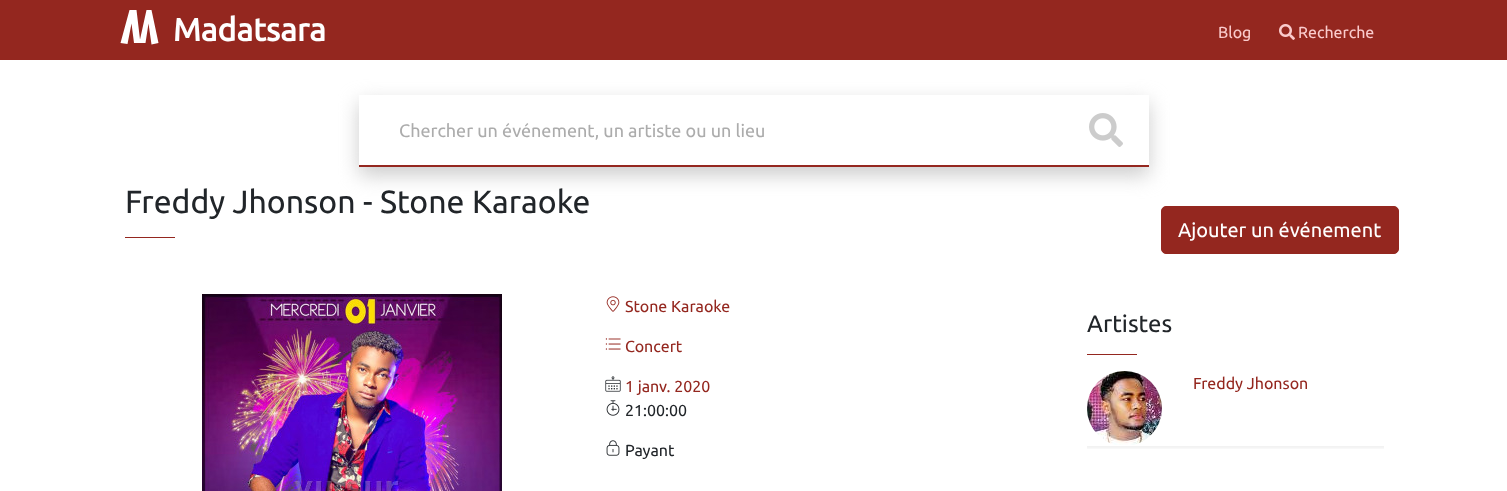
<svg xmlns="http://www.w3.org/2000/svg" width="1507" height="491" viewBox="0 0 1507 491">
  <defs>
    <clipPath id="clip1"><path d="M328 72H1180V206H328ZM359 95H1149V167H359Z" clip-rule="evenodd"/></clipPath>
    <clipPath id="clip2"><path d="M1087 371h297v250H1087z"/></clipPath>
    <clipPath id="clip3"><path d="M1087 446h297v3H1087z"/></clipPath>
  </defs>
  <rect width="100%" height="100%" fill="#fff"/>
  <path d="M0 0h1507v60H0z" fill="#94271f"/>
  <path d="M120.5 43L129.5 10H136.5L140 39.5L146.5 10H151.5L158.5 43L151.5 44.5L148.5 23.5L145.5 43H134L131.5 23.5L127.5 44Z" fill="#fff"/>
  <image x="1279" y="24" width="16" height="16" href="img/1.png"/>
  <g clip-path="url(#clip1)">
    <path d="M359 103h790v72H359z" fill="#ccc" filter="blur(10px)"/>
  </g>
  <path d="M359 165h790v2H359z" fill="#94271f"/>
  <image x="1089" y="113" width="34" height="34" href="img/2.png"/>
  <path d="M125 237h50v1H125z" fill="#94271f"/>
  <rect x="1161.5" y="206.5" width="237" height="47" rx="4.5" fill="#94271f" stroke="#94271f"/>
  <image x="202" y="294" width="300" height="197" href="img/3.png"/>
  <image x="606" y="296" width="14" height="16" href="img/4.png"/>
  <image x="605" y="338" width="16" height="12" href="img/5.png"/>
  <image x="605" y="376" width="16" height="16" href="img/6.png"/>
  <image x="606" y="400" width="14" height="16" href="img/7.png"/>
  <image x="606" y="440" width="14" height="16" href="img/8.png"/>
  <path d="M1087 354h50v1H1087z" fill="#94271f"/>
  <g clip-path="url(#clip2)">
    <g clip-path="url(#clip3)">
      <path d="M1075 373h321v75H1075z" fill="#00000012" filter="blur(2px)"/>
    </g>
  </g>
  <image x="1087" y="371" width="75" height="74" href="img/9.png"/>
  <text x="173" y="41" font-family="Ubuntu" font-size="32" font-weight="bold" fill="#fff">Madatsara</text>
  <g font-family="Ubuntu" font-size="16" fill="#facbcc">
    <text x="1218" y="38">Blog</text>
    <text x="1298" y="38">Recherche</text>
  </g>
  <text x="399" y="137" font-family="Ubuntu" font-size="18" fill="#acacac">Chercher un événement, un artiste ou un lieu</text>
  <text x="125" y="213" font-family="Ubuntu" font-size="32" fill="#212529">Freddy Jhonson‍ - Stone Karaoke ‍</text>
  <text x="1178" y="237" font-family="Ubuntu" font-size="20" fill="#fff">Ajouter un événement</text>
  <g font-family="Ubuntu" font-size="16" fill="#94271f">
    <text x="625" y="312">Stone Karaoke</text>
    <text x="625" y="352">Concert</text>
    <text x="625" y="392">1 janv. 2020</text>
  </g>
  <g font-family="Ubuntu" font-size="16" fill="#212529">
    <text x="625" y="416">21:00:00</text>
    <text x="625" y="456">Payant</text>
  </g>
  <text x="1087" y="332" font-family="Ubuntu" font-size="24" fill="#212529">Artistes</text>
  <text x="1193" y="389" font-family="Ubuntu" font-size="16" fill="#94271f">Freddy Jhonson</text>
</svg>
